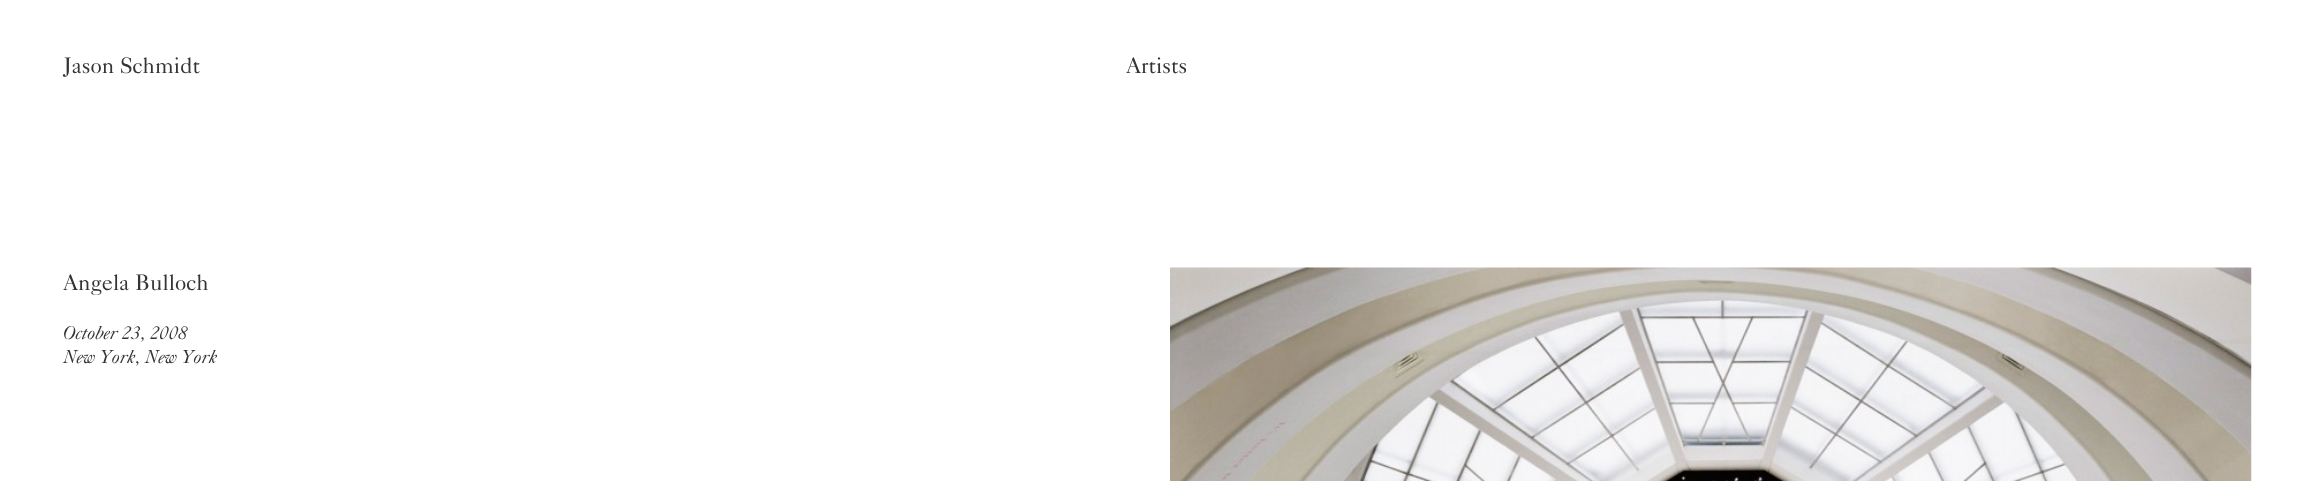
<svg xmlns="http://www.w3.org/2000/svg" width="2313" height="481" viewBox="0 0 2313 481">
  <rect width="100%" height="100%" fill="#fff"/>
  <image x="1170" y="267" width="1082" height="214" href="img/1.png"/>
  <g font-family="'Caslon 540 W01'" font-size="22.5" fill="#343434">
    <text x="63" y="73">Jason Schmidt</text>
    <text x="1126" y="73">Artists</text>
    <text x="63" y="290">Angela Bulloch</text>
  </g>
  <g font-family="'Caslon 540 W01'" font-size="18.75" font-style="italic" fill="#343434">
    <text x="63" y="339">October 23, 2008</text>
    <text x="63" y="363">New York, New York</text>
  </g>
</svg>
